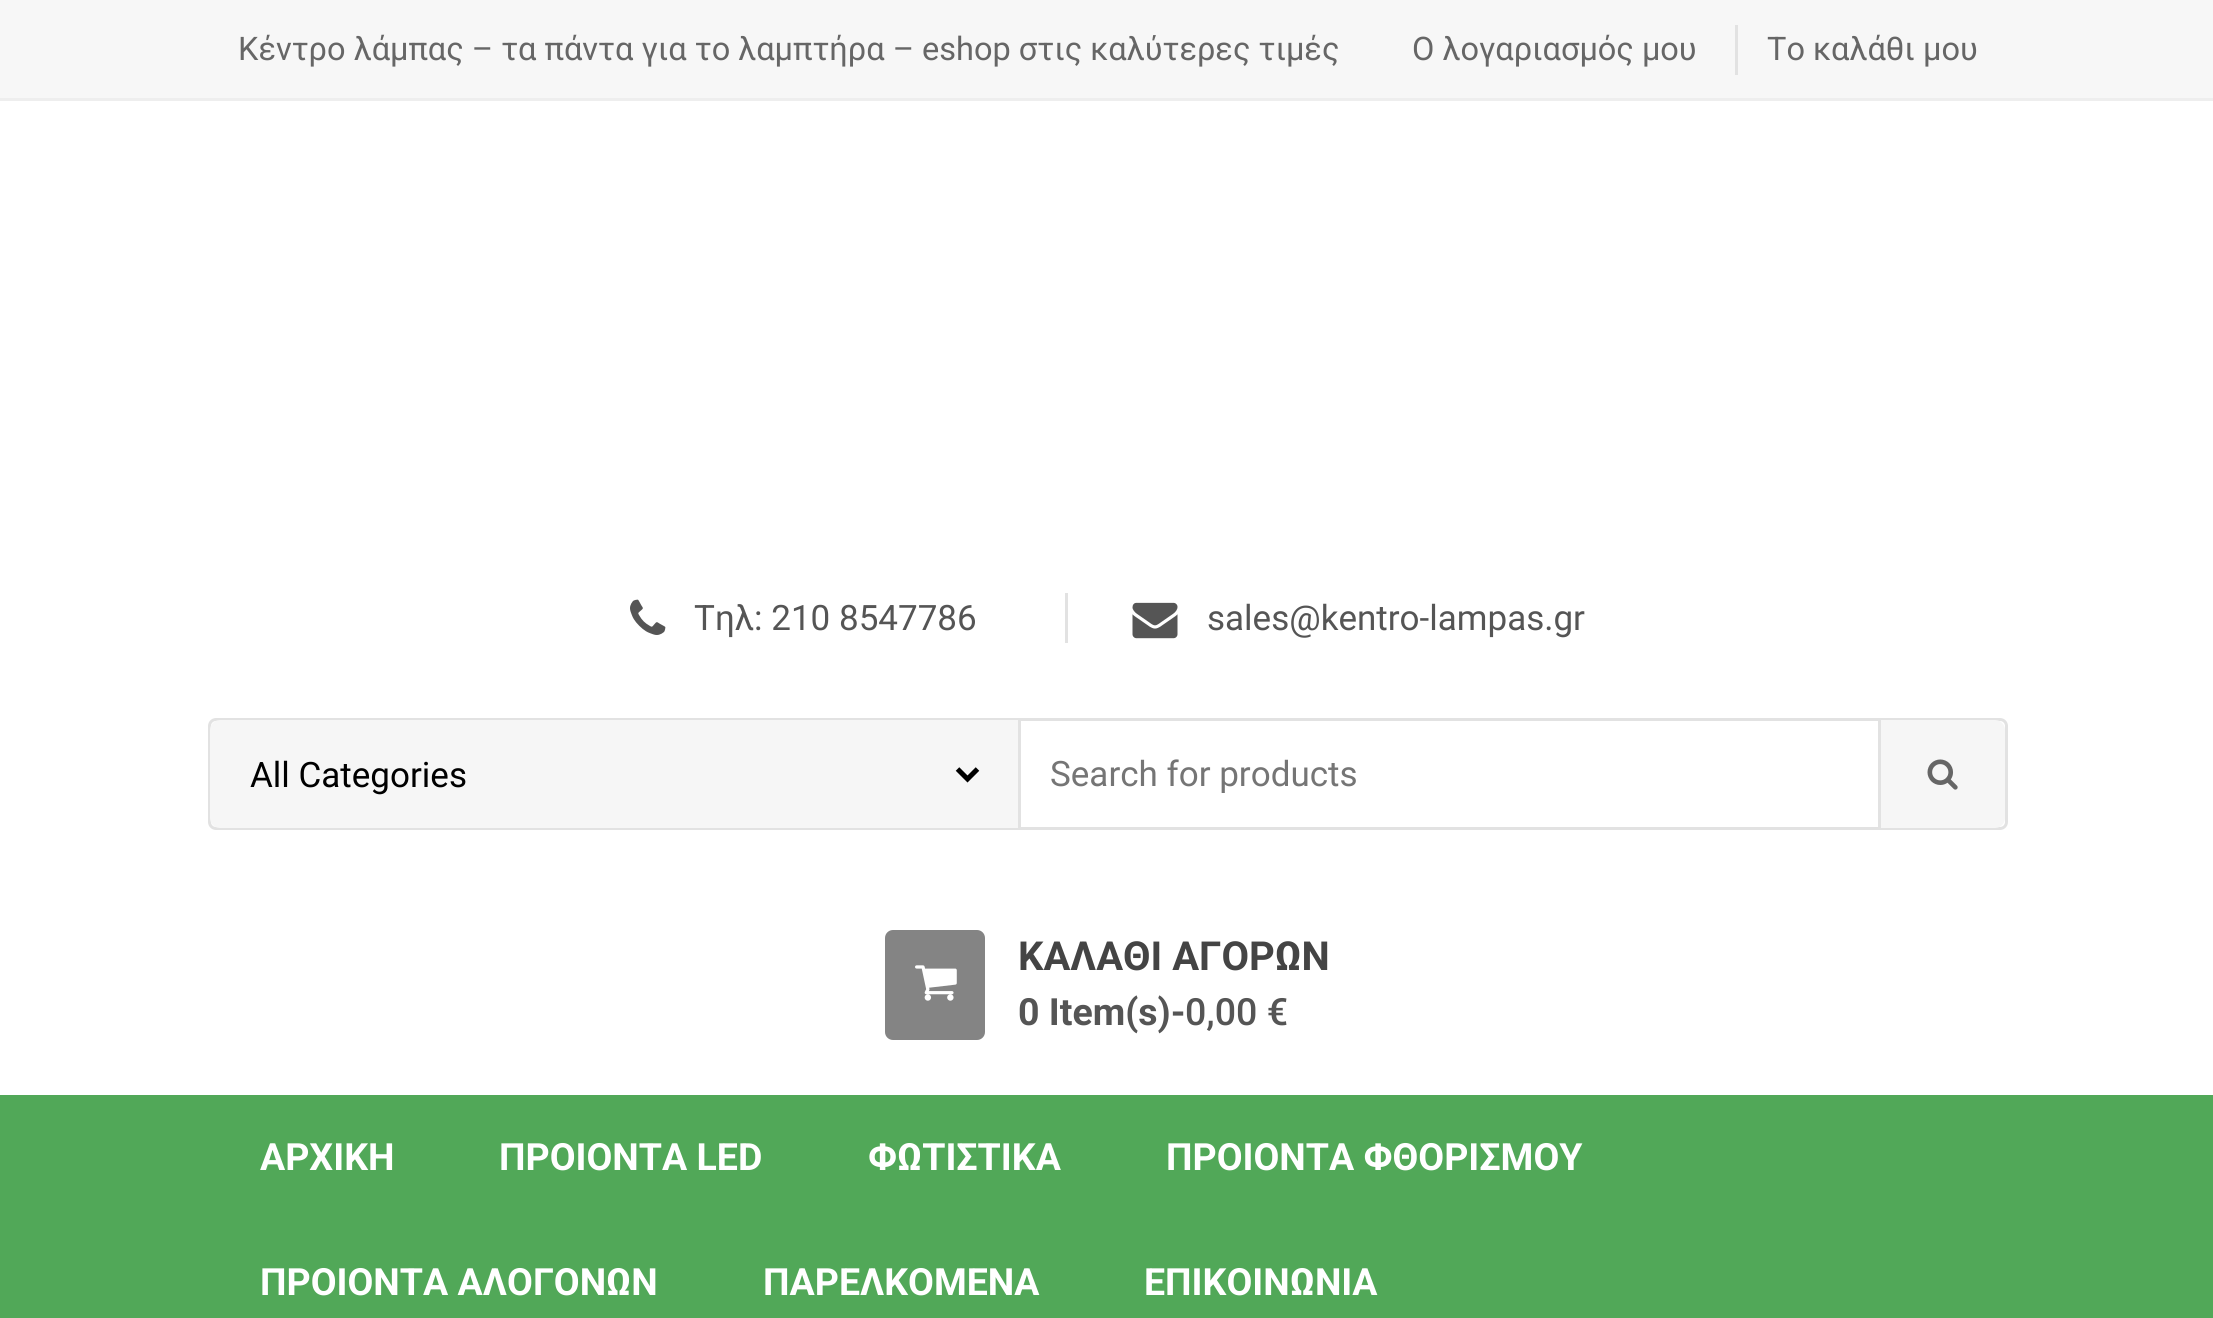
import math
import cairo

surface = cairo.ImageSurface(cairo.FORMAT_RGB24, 2213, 1318)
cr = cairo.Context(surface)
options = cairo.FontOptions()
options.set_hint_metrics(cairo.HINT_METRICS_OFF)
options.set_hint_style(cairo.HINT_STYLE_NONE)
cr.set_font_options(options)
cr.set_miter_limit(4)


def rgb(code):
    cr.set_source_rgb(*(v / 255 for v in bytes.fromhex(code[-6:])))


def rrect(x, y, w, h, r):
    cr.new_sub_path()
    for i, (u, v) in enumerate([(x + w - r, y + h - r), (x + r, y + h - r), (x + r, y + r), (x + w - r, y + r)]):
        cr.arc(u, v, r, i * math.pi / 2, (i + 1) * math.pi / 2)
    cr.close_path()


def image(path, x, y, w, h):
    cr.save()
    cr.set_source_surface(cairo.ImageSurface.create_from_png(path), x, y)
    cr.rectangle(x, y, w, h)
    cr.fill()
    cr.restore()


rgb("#ffffff")
cr.paint()
for x, y, w, h, color in [
    (0, 0, 2213, 98, "#f7f7f7"),
    (0, 98, 2213, 3, "#eeeeee"),
    (1735, 25, 3, 50, "#e2e2e2"),
    (1065, 593, 3, 50, "#e2e2e2"),
]:
    rgb(color)
    cr.rectangle(x, y, w, h)
    cr.fill()
image("img/1.png", 630, 599, 36, 36)
image("img/2.png", 1132, 602, 46, 37)
rrect(209.5, 719.5, 1797, 109, 6.5)
cr.set_line_width(3)
cr.stroke()
rgb("#f6f6f6")
cr.new_path()
cr.move_to(220, 720)
cr.line_to(1020, 720)
cr.line_to(1020, 828)
cr.line_to(220, 828)
cr.curve_to(214.5, 828, 210, 823.5, 210, 818)
cr.line_to(210, 730)
cr.curve_to(210, 724.5, 214.5, 720, 220, 720)
cr.close_path()
cr.fill()
rgb("#e2e2e2")
cr.rectangle(1018, 720, 3, 108)
cr.fill()
cr.new_path()
cr.move_to(957.5, 769)
cr.line_to(967.5, 779)
cr.line_to(977.5, 769)
rgb("#000000")
cr.set_line_width(5)
cr.stroke()
rgb("#f6f6f6")
cr.new_path()
cr.move_to(1880, 720)
cr.line_to(1995, 720)
cr.curve_to(2000.5, 720, 2005, 724.5, 2005, 730)
cr.line_to(2005, 818)
cr.curve_to(2005, 823.5, 2000.5, 828, 1995, 828)
cr.line_to(1880, 828)
cr.close_path()
cr.fill()
rgb("#e2e2e2")
cr.rectangle(1878, 720, 3, 108)
cr.fill()
image("img/3.png", 1927, 759, 31, 31)
rgb("#848484")
rrect(885, 930, 100, 110, 8)
cr.fill()
image("img/4.png", 915, 965, 42, 36)
rgb("#51a858")
cr.rectangle(0, 1095, 2213, 223)
cr.fill()
cr.select_font_face("Roboto")
cr.set_font_size(32.5)
rgb("#666666")
for x, y, s in [
    (238, 60, "Κέντρο λάμπας – τα πάντα για το λαμπτήρα – eshop στις καλύτερες τιμές"),
    (1412, 60, "Ο λογαριασμός μου"),
    (1767, 60, "Το καλάθι μου"),
]:
    cr.move_to(x, y)
    cr.show_text(s)
cr.set_font_size(35)
rgb("#555555")
cr.move_to(694, 630)
cr.show_text("Τηλ: 210 8547786")
cr.move_to(1207, 630)
cr.show_text("sales@kentro-lampas.gr")
rgb("#000000")
cr.move_to(250, 787)
cr.show_text("All Categories")
cr.save()
cr.rectangle(1050, 753, 798, 40)
cr.clip()
rgb("#757575")
cr.move_to(1050, 786)
cr.show_text("Search for products")
cr.restore()
cr.select_font_face("Roboto", cairo.FONT_SLANT_NORMAL, cairo.FONT_WEIGHT_BOLD)
cr.set_font_size(40)
rgb("#444444")
cr.move_to(1018, 970)
cr.show_text("ΚΑΛΑΘΙ ΑΓΟΡΩΝ")
cr.set_font_size(37.5)
rgb("#555555")
cr.move_to(1018, 1025)
cr.show_text("0 Item(s)-")
cr.select_font_face("Roboto Medium")
cr.move_to(1185, 1025)
cr.show_text("0,00 €")
cr.select_font_face("Roboto", cairo.FONT_SLANT_NORMAL, cairo.FONT_WEIGHT_BOLD)
rgb("#ffffff")
for x, y, s in [
    (260, 1170, "ΑΡΧΙΚΗ"),
    (499, 1170, "ΠΡΟΙΟΝΤΑ LED"),
    (868, 1170, "ΦΩΤΙΣΤΙΚΑ"),
    (1166, 1170, "ΠΡΟΙΟΝΤΑ ΦΘΟΡΙΣΜΟΥ"),
    (260, 1295, "ΠΡΟΙΟΝΤΑ ΑΛΟΓΟΝΩΝ"),
    (763, 1295, "ΠΑΡΕΛΚΟΜΕΝΑ"),
    (1144, 1295, "ΕΠΙΚΟΙΝΩΝΙΑ"),
]:
    cr.move_to(x, y)
    cr.show_text(s)
surface.write_to_png("page.png")
